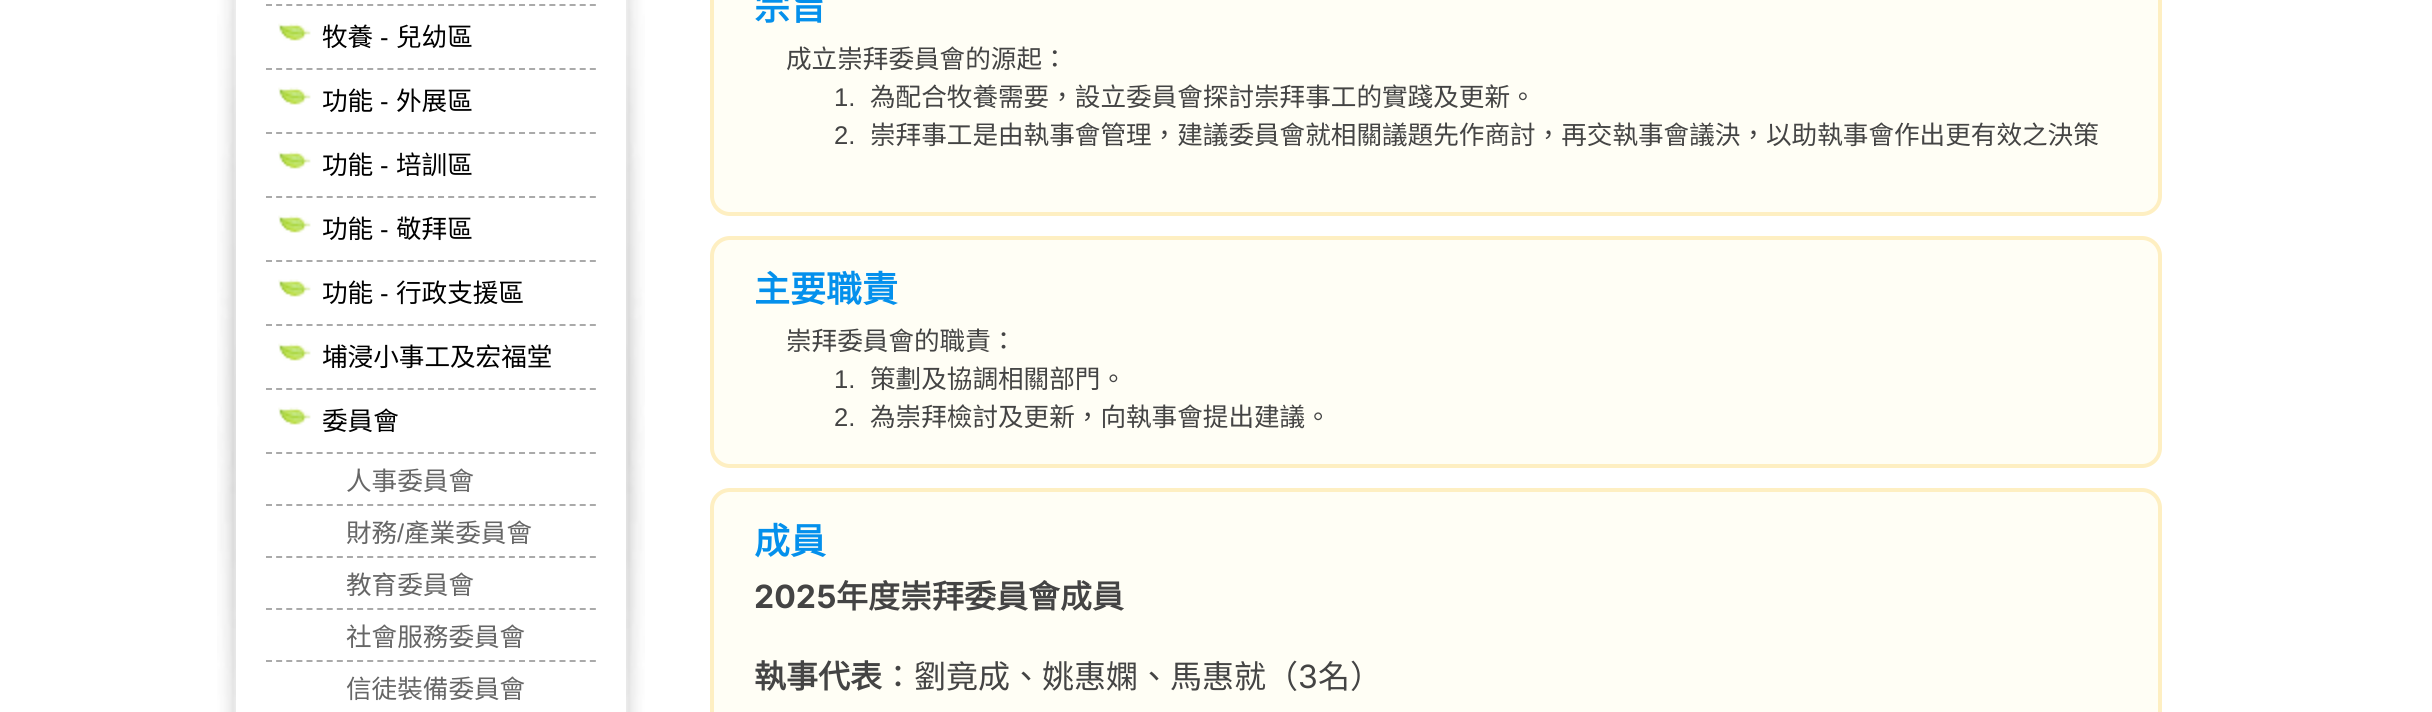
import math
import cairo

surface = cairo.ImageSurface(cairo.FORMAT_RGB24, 2432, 712)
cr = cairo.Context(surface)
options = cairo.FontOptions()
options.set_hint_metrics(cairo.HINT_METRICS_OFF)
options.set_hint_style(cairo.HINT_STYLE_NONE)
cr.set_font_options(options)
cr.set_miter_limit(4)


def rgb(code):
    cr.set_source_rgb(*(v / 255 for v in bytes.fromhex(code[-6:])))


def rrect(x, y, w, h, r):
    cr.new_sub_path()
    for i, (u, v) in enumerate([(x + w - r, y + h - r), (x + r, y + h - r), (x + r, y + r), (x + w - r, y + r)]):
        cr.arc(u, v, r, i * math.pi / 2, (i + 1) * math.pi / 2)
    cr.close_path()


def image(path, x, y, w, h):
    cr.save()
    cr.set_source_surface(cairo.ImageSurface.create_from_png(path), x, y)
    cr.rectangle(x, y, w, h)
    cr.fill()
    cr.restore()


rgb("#ffffff")
cr.paint()
image("img/1.png", 217, 0, 19, 712)
cr.new_path()
cr.move_to(266, 5)
cr.line_to(596, 5)
rgb("#aaaaaa")
cr.set_dash([6, 4.12])
cr.stroke()
image("img/2.png", 278, 23, 33, 18)
cr.new_path()
cr.move_to(266, 69)
cr.line_to(596, 69)
cr.stroke()
image("img/2.png", 278, 87, 33, 18)
cr.new_path()
cr.move_to(266, 133)
cr.line_to(596, 133)
cr.stroke()
image("img/2.png", 278, 151, 33, 18)
cr.new_path()
cr.move_to(266, 197)
cr.line_to(596, 197)
cr.stroke()
image("img/2.png", 278, 215, 33, 18)
cr.new_path()
cr.move_to(266, 261)
cr.line_to(596, 261)
cr.stroke()
image("img/2.png", 278, 279, 33, 18)
cr.new_path()
cr.move_to(266, 325)
cr.line_to(596, 325)
cr.stroke()
image("img/2.png", 278, 343, 33, 18)
cr.new_path()
cr.move_to(266, 389)
cr.line_to(596, 389)
cr.stroke()
image("img/2.png", 278, 407, 33, 18)
cr.new_path()
cr.move_to(266, 453)
cr.line_to(596, 453)
cr.stroke()
cr.new_path()
cr.move_to(266, 505)
cr.line_to(596, 505)
cr.stroke()
cr.new_path()
cr.move_to(266, 557)
cr.line_to(596, 557)
cr.stroke()
cr.new_path()
cr.move_to(266, 609)
cr.line_to(596, 609)
cr.stroke()
cr.new_path()
cr.move_to(266, 661)
cr.line_to(596, 661)
cr.stroke()
image("img/3.png", 626, 0, 19, 712)
rgb("#feefc2")
rrect(710, -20, 1452, 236, 20)
cr.fill()
rgb("#fffef5")
rrect(714, -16, 1444, 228, 16)
cr.fill()
rgb("#feefc2")
rrect(710, 236, 1452, 232, 20)
cr.fill()
rgb("#fffef5")
rrect(714, 240, 1444, 224, 16)
cr.fill()
rgb("#feefc2")
rrect(710, 488, 1452, 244, 20)
cr.fill()
rgb("#fffef5")
rrect(714, 492, 1444, 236, 16)
cr.fill()
cr.select_font_face("Noto Sans CJK HK")
cr.set_font_size(25.6)
rgb("#000000")
cr.move_to(322, 46)
cr.show_text("牧養")
cr.select_font_face("Liberation Sans")
cr.move_to(380, 46)
cr.show_text("-")
cr.select_font_face("Noto Sans CJK HK")
cr.move_to(396, 46)
cr.show_text("兒幼區")
cr.move_to(322, 110)
cr.show_text("功能")
cr.select_font_face("Liberation Sans")
cr.move_to(380, 110)
cr.show_text("-")
cr.select_font_face("Noto Sans CJK HK")
cr.move_to(396, 110)
cr.show_text("外展區")
cr.move_to(322, 174)
cr.show_text("功能")
cr.select_font_face("Liberation Sans")
cr.move_to(380, 174)
cr.show_text("-")
cr.select_font_face("Noto Sans CJK HK")
cr.move_to(396, 174)
cr.show_text("培訓區")
cr.move_to(322, 238)
cr.show_text("功能")
cr.select_font_face("Liberation Sans")
cr.move_to(380, 238)
cr.show_text("-")
cr.select_font_face("Noto Sans CJK HK")
cr.move_to(396, 238)
cr.show_text("敬拜區")
cr.move_to(322, 302)
cr.show_text("功能")
cr.select_font_face("Liberation Sans")
cr.move_to(380, 302)
cr.show_text("-")
cr.select_font_face("Noto Sans CJK HK")
for x, y, s in [
    (396, 302, "行政支援區"),
    (322, 366, "埔浸小事工及宏福堂"),
    (322, 430, "委員會"),
]:
    cr.move_to(x, y)
    cr.show_text(s)
rgb("#666666")
cr.move_to(346, 490)
cr.show_text("人事委員會")
cr.move_to(346, 542)
cr.show_text("財務")
cr.select_font_face("Liberation Sans")
cr.move_to(397, 542)
cr.show_text("/")
cr.select_font_face("Noto Sans CJK HK")
for x, y, s in [
    (404, 542, "產業委員會"),
    (346, 594, "教育委員會"),
    (346, 646, "社會服務委員會"),
    (346, 698, "信徒裝備委員會"),
]:
    cr.move_to(x, y)
    cr.show_text(s)
cr.select_font_face("Noto Sans CJK HK", cairo.FONT_SLANT_NORMAL, cairo.FONT_WEIGHT_BOLD)
cr.set_font_size(36)
rgb("#0490ec")
cr.move_to(754, 20)
cr.show_text("宗旨")
cr.select_font_face("Noto Sans CJK HK")
cr.set_font_size(25.6)
rgb("#444444")
cr.move_to(786, 68)
cr.show_text("成立崇拜委員會的源起：")
cr.select_font_face("Liberation Sans")
cr.move_to(834, 106)
cr.show_text("1.")
cr.select_font_face("Noto Sans CJK HK")
cr.move_to(870, 106)
cr.show_text("為配合牧養需要，設立委員會探討崇拜事工的實踐及更新。")
cr.select_font_face("Liberation Sans")
cr.move_to(834, 144)
cr.show_text("2.")
cr.select_font_face("Noto Sans CJK HK")
cr.move_to(870, 144)
cr.show_text("崇拜事工是由執事會管理，建議委員會就相關議題先作商討，再交執事會議決，以助執事會作出更有效之決策")
cr.select_font_face("Noto Sans CJK HK", cairo.FONT_SLANT_NORMAL, cairo.FONT_WEIGHT_BOLD)
cr.set_font_size(36)
rgb("#0490ec")
cr.move_to(754, 302)
cr.show_text("主要職責")
cr.select_font_face("Noto Sans CJK HK")
cr.set_font_size(25.6)
rgb("#444444")
cr.move_to(786, 350)
cr.show_text("崇拜委員會的職責：")
cr.select_font_face("Liberation Sans")
cr.move_to(834, 388)
cr.show_text("1.")
cr.select_font_face("Noto Sans CJK HK")
cr.move_to(870, 388)
cr.show_text("策劃及協調相關部門。")
cr.select_font_face("Liberation Sans")
cr.move_to(834, 426)
cr.show_text("2.")
cr.select_font_face("Noto Sans CJK HK")
cr.move_to(870, 426)
cr.show_text("為崇拜檢討及更新，向執事會提出建議。")
cr.select_font_face("Noto Sans CJK HK", cairo.FONT_SLANT_NORMAL, cairo.FONT_WEIGHT_BOLD)
cr.set_font_size(36)
rgb("#0490ec")
cr.move_to(754, 554)
cr.show_text("成員")
cr.select_font_face("Inter", cairo.FONT_SLANT_NORMAL, cairo.FONT_WEIGHT_BOLD)
cr.set_font_size(32)
rgb("#444444")
cr.move_to(754, 608)
cr.show_text("2025")
cr.select_font_face("Noto Sans CJK HK", cairo.FONT_SLANT_NORMAL, cairo.FONT_WEIGHT_BOLD)
cr.move_to(836, 608)
cr.show_text("年度崇拜委員會成員")
cr.move_to(754, 688)
cr.show_text("執事代表")
cr.select_font_face("Noto Sans CJK HK")
cr.move_to(882, 688)
cr.show_text("：劉竟成、姚惠嫻、馬惠就（")
cr.select_font_face("Inter")
cr.move_to(1298, 688)
cr.show_text("3")
cr.select_font_face("Noto Sans CJK HK")
cr.move_to(1318, 688)
cr.show_text("名）")
surface.write_to_png("page.png")
